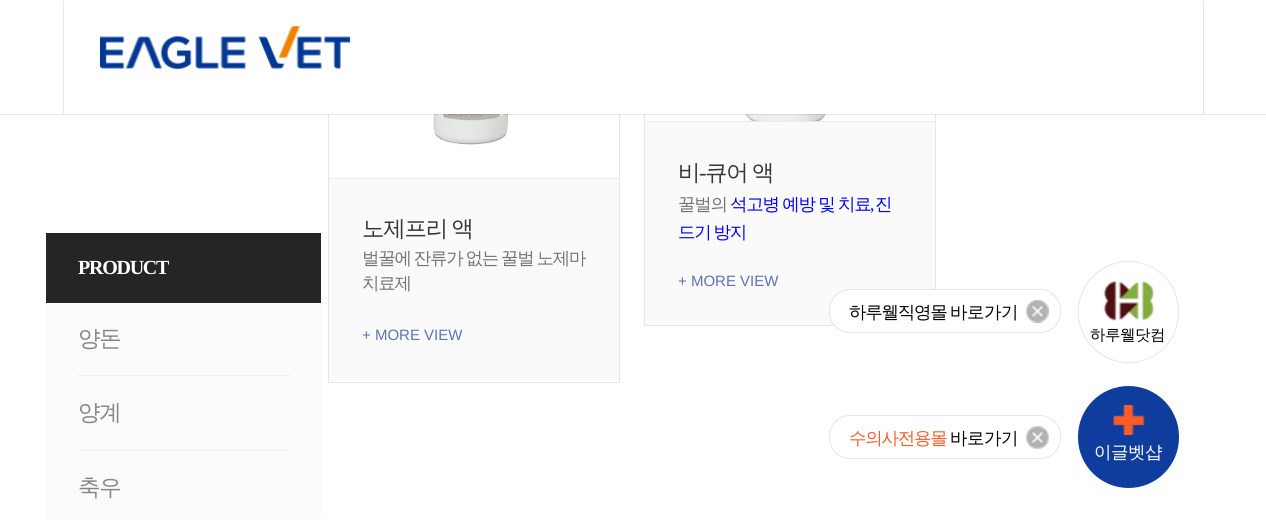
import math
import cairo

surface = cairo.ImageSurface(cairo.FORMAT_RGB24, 1266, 524)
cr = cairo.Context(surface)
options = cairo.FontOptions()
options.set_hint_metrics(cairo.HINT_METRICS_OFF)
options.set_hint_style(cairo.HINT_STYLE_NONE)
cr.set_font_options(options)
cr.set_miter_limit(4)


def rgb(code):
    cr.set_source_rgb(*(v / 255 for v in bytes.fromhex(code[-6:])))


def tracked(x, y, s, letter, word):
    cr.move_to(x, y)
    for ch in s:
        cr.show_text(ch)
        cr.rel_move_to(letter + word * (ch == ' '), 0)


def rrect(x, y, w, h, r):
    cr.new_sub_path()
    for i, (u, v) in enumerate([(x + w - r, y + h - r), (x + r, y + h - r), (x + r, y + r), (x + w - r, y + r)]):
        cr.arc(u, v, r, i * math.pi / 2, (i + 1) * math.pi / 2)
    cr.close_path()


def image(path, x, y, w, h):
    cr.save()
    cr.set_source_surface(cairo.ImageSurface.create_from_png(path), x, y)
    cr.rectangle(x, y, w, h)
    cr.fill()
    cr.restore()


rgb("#ffffff")
cr.paint()
cr.rectangle(328.5, -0.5, 291, 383)
rgb("#e6e6e6")
cr.set_line_width(1)
cr.stroke()
image("img/2.png", 433, 114, 77, 31)
cr.rectangle(644.5, -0.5, 291, 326)
cr.stroke()
image("img/3.png", 739, 114, 91, 7)
cr.set_source_rgba(0, 0, 0, 0.1)
cr.rectangle(0, 114, 1266, 1)
cr.fill()
rgb("#ffffff")
cr.rectangle(328, 0, 608, 114)
cr.fill()
rgb("#e6e6e6")
cr.rectangle(63, 1, 1, 113)
cr.fill()
image("img/1.png", 100, 26, 251, 43)
for x, y, w, h, color in [
    (1203, 1, 1, 113, "#e6e6e6"),
    (46, 233, 275, 70, "#252525"),
    (46, 303, 275, 216, "#fbfbfb"),
    (78, 375, 212, 1, "#f1f1f1"),
    (78, 450, 212, 1, "#f1f1f1"),
    (329, 179, 290, 202, "#fafafa"),
    (329, 178, 290, 1, "#ebebeb"),
    (645, 122, 290, 203, "#fafafa"),
    (645, 121, 290, 1, "#ebebeb"),
]:
    rgb(color)
    cr.rectangle(x, y, w, h)
    cr.fill()
rgb("#ffffff")
rrect(829.5, 289.5, 231, 43, 20.5)
cr.fill_preserve()
rgb("#e5e5e5")
cr.stroke()
image("img/4.png", 1026, 300, 23, 23)
rrect(1078.5, 261.5, 100, 101, 50)
rgb("#e6e6e6")
cr.stroke()
image("img/5.png", 1103, 281, 51, 40)
rrect(829.5, 415.5, 231, 43, 20.5)
cr.stroke()
image("img/6.png", 1026, 426, 23, 23)
rgb("#0f3d9d")
rrect(1078, 386, 101, 102, 50.5)
cr.fill()
image("img/7.png", 1113, 405, 32, 30)
cr.select_font_face("Liberation Serif", cairo.FONT_SLANT_NORMAL, cairo.FONT_WEIGHT_BOLD)
cr.set_font_size(20)
rgb("#ffffff")
tracked(78, 274, "PRODUCT", -1.25, 0)
cr.select_font_face("WenQuanYi Zen Hei Medium")
cr.set_font_size(22.5)
rgb("#868686")
for x, y, s in [
    (78, 346, "양돈"),
    (78, 420, "양계"),
    (78, 495, "축우"),
]:
    tracked(x, y, s, -1.25, 0)
rgb("#363636")
tracked(362, 236, "노제프리 액", -1.25, -1)
cr.set_font_size(17.5)
rgb("#737373")
tracked(362, 264, "벌꿀에 잔류가 없는 꿀벌 노제마", -1.25, -1)
tracked(362, 289, "치료제", -1.25, 0)
cr.select_font_face("Liberation Sans")
cr.set_font_size(15)
rgb("#5d73b3")
cr.move_to(362, 340)
cr.show_text("+ MORE VIEW")
cr.select_font_face("WenQuanYi Zen Hei Medium")
cr.set_font_size(22.5)
rgb("#363636")
tracked(678, 180, "비", -1.25, 0)
cr.select_font_face("Liberation Serif")
tracked(699, 180, "-", -1.25, 0)
cr.select_font_face("WenQuanYi Zen Hei Medium")
tracked(705, 180, "큐어 액", -1.25, -1)
cr.set_font_size(17.5)
rgb("#737373")
tracked(678, 210, "꿀벌의", -1.25, 0)
rgb("#0000ff")
tracked(730, 210, "석고병 예방 및 치료", -1.25, -0.5)
cr.select_font_face("Liberation Serif")
tracked(870, 210, ",", -1.25, 0)
cr.select_font_face("WenQuanYi Zen Hei Medium")
tracked(875, 210, "진", -1.25, 0)
tracked(678, 238, "드기 방지", -1.25, -1)
cr.select_font_face("Liberation Sans")
cr.set_font_size(15)
rgb("#5d73b3")
cr.move_to(678, 286)
cr.show_text("+ MORE VIEW")
cr.select_font_face("WenQuanYi Zen Hei Medium")
cr.set_font_size(17.5)
rgb("#000000")
tracked(849, 318, "하루웰직영몰", -1.25, 0)
tracked(950, 318, "바로가기", -0.5, 0)
cr.set_font_size(15.5)
tracked(1090, 340, "하루웰닷컴", -0.5, 0)
cr.set_font_size(17.5)
rgb("#fb5b27")
tracked(849, 444, "수의사전용몰", -1.25, 0)
rgb("#000000")
tracked(950, 444, "바로가기", -0.5, 0)
rgb("#ffffff")
tracked(1094, 458, "이글벳샵", -0.5, 0)
surface.write_to_png("page.png")
